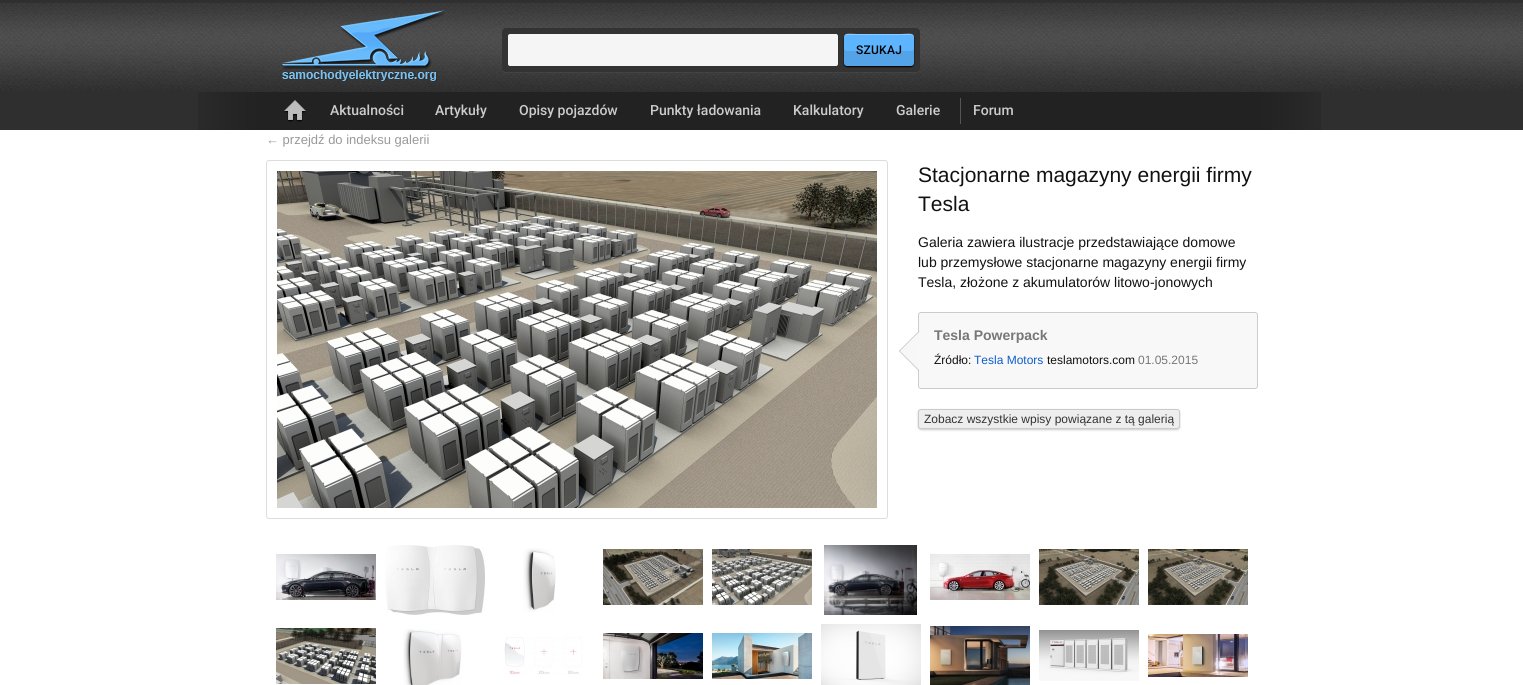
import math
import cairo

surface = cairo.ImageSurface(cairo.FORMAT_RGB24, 1523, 685)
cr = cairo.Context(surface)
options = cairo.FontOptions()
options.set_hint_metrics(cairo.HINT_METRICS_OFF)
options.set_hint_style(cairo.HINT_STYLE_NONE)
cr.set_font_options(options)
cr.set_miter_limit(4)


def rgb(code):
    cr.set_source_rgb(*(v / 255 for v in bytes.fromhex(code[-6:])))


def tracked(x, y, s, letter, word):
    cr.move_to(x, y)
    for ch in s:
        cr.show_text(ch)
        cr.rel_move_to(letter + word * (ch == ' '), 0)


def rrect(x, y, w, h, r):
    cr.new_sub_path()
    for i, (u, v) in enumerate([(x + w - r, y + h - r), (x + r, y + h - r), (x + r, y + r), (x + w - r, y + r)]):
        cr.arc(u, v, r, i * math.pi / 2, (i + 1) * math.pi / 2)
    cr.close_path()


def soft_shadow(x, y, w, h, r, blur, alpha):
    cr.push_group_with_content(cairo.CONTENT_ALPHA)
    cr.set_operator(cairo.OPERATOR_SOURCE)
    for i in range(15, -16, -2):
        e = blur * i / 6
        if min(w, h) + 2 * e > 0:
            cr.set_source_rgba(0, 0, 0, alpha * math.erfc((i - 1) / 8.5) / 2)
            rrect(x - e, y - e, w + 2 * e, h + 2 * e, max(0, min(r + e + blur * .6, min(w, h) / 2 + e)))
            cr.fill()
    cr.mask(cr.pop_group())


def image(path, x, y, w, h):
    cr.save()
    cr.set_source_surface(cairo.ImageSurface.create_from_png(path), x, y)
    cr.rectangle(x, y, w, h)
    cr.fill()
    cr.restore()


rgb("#ffffff")
cr.paint()
rgb("#2f2f2f")
cr.rectangle(0, 0, 1523, 2)
cr.fill()
image("img/1.png", 0, 2, 1523, 90)
image("img/2.png", 281, 10, 164, 72)
cr.set_source_rgba(1, 1, 1, 0.04)
cr.new_path()
cr.move_to(502, 68)
cr.line_to(502, 69)
cr.curve_to(502, 71, 504, 73, 506, 73)
cr.line_to(916, 73)
cr.curve_to(918, 73, 920, 71, 920, 69)
cr.line_to(920, 68)
cr.curve_to(920, 70, 918, 72, 916, 72)
cr.line_to(506, 72)
cr.curve_to(504, 72, 502, 70, 502, 68)
cr.close_path()
cr.fill()
rgb("#333333")
rrect(502, 28, 418, 44, 4)
cr.fill()
rgb("#f5f5f5")
rrect(508, 34, 330, 32, 2)
cr.fill()
rgb("#000000")
soft_shadow(844, 35, 70, 32, 3, 0.5, 1)
rgb("#5db5ff")
rrect(844, 34, 70, 32, 3)
cr.fill()
cr.set_source_rgba(1, 1, 1, 0.3)
cr.new_path()
cr.move_to(847, 35)
cr.line_to(911, 35)
cr.curve_to(913, 35, 914, 36, 914, 38)
cr.curve_to(914, 31, 905, 34, 900, 34)
cr.line_to(858, 34)
cr.curve_to(853, 34, 844, 31, 844, 38)
cr.curve_to(844, 36, 845, 35, 847, 35)
cr.close_path()
cr.fill()
cr.set_source_rgba(0, 0, 0, 0.1)
cr.new_path()
cr.move_to(844, 48)
cr.line_to(844, 63)
cr.curve_to(844, 65, 845, 66, 847, 66)
cr.line_to(911, 66)
cr.curve_to(913, 66, 914, 65, 914, 63)
cr.line_to(914, 48)
cr.curve_to(914, 50, 913, 51, 911, 51)
cr.line_to(847, 51)
cr.curve_to(845, 51, 844, 50, 844, 48)
cr.close_path()
cr.fill()
rgb("#2f2f2f")
cr.rectangle(0, 92, 1523, 38)
cr.fill()
image("img/3.png", 198, 92, 1123, 38)
image("img/4.png", 284, 100, 22, 22)
rgb("#555555")
cr.rectangle(960, 98, 1, 26)
cr.fill()
rrect(266.5, 160.5, 621, 358, 2.5)
rgb("#dddddd")
cr.set_line_width(1)
cr.stroke()
image("img/5.png", 277, 171, 600, 337)
rgb("#f8f8f8")
rrect(918.5, 312.5, 339, 76, 2.5)
cr.fill_preserve()
rgb("#cccccc")
cr.stroke()
image("img/6.png", 899, 331, 20, 40)
rgb("#000000")
soft_shadow(918, 410, 262, 20, 3, 1, 0.2)
rgb("#eeeeee")
rrect(918.5, 409.5, 261, 19, 2.5)
cr.fill_preserve()
rgb("#cacaca")
cr.stroke()
image("img/7.png", 276, 554, 100, 46)
image("img/8.png", 385, 545, 100, 70)
image("img/9.png", 523, 548, 33, 64)
image("img/10.png", 603, 549, 100, 56)
image("img/11.png", 712, 549, 100, 56)
image("img/12.png", 824, 545, 93, 70)
image("img/13.png", 930, 554, 100, 46)
image("img/14.png", 1039, 549, 100, 56)
image("img/15.png", 1148, 549, 100, 56)
image("img/16.png", 276, 628, 100, 56)
image("img/17.png", 403, 629, 59, 56)
image("img/18.png", 504, 637, 79, 38)
image("img/19.png", 603, 633, 100, 46)
image("img/20.png", 712, 633, 100, 46)
image("img/21.png", 821, 624, 100, 61)
image("img/22.png", 930, 626, 100, 59)
image("img/23.png", 1039, 630, 100, 51)
image("img/24.png", 1148, 634, 100, 43)
cr.select_font_face("Roboto Medium")
cr.set_font_size(12)
rgb("#000000")
tracked(856, 54, "SZUKAJ", 0.25, 0)
cr.set_font_size(14)
rgb("#cccccc")
for x, y, s in [
    (330, 115, "Aktualności"),
    (435, 115, "Artykuły"),
    (519, 115, "Opisy pojazdów"),
    (650, 115, "Punkty ładowania"),
    (793, 115, "Kalkulatory"),
    (896, 115, "Galerie"),
    (973, 115, "Forum"),
]:
    cr.move_to(x, y)
    cr.show_text(s)
cr.select_font_face("Liberation Sans")
cr.set_font_size(13)
rgb("#999999")
cr.move_to(266, 144)
cr.show_text("← przejdź do indeksu galerii")
cr.set_font_size(21)
rgb("#111111")
cr.move_to(918, 182)
cr.show_text("Stacjonarne magazyny energii firmy")
cr.move_to(918, 211)
cr.show_text("Tesla")
cr.set_font_size(14)
for x, y, s in [
    (918, 247, "Galeria zawiera ilustracje przedstawiające domowe"),
    (918, 267, "lub przemysłowe stacjonarne magazyny energii firmy"),
    (918, 287, "Tesla, złożone z akumulatorów litowo-jonowych"),
]:
    cr.move_to(x, y)
    cr.show_text(s)
cr.select_font_face("Liberation Sans", cairo.FONT_SLANT_NORMAL, cairo.FONT_WEIGHT_BOLD)
rgb("#777777")
cr.move_to(934, 340)
cr.show_text("Tesla Powerpack")
cr.select_font_face("Liberation Sans")
cr.set_font_size(12)
rgb("#111111")
cr.move_to(934, 364)
cr.show_text("Źródło:")
rgb("#0e5dca")
cr.move_to(974, 364)
cr.show_text("Tesla Motors")
rgb("#111111")
cr.move_to(1047, 364)
cr.show_text("teslamotors.com")
rgb("#777777")
cr.move_to(1138, 364)
cr.show_text("01.05.2015")
rgb("#333333")
cr.move_to(924, 423)
cr.show_text("Zobacz wszystkie wpisy powiązane z tą galerią")
surface.write_to_png("page.png")
